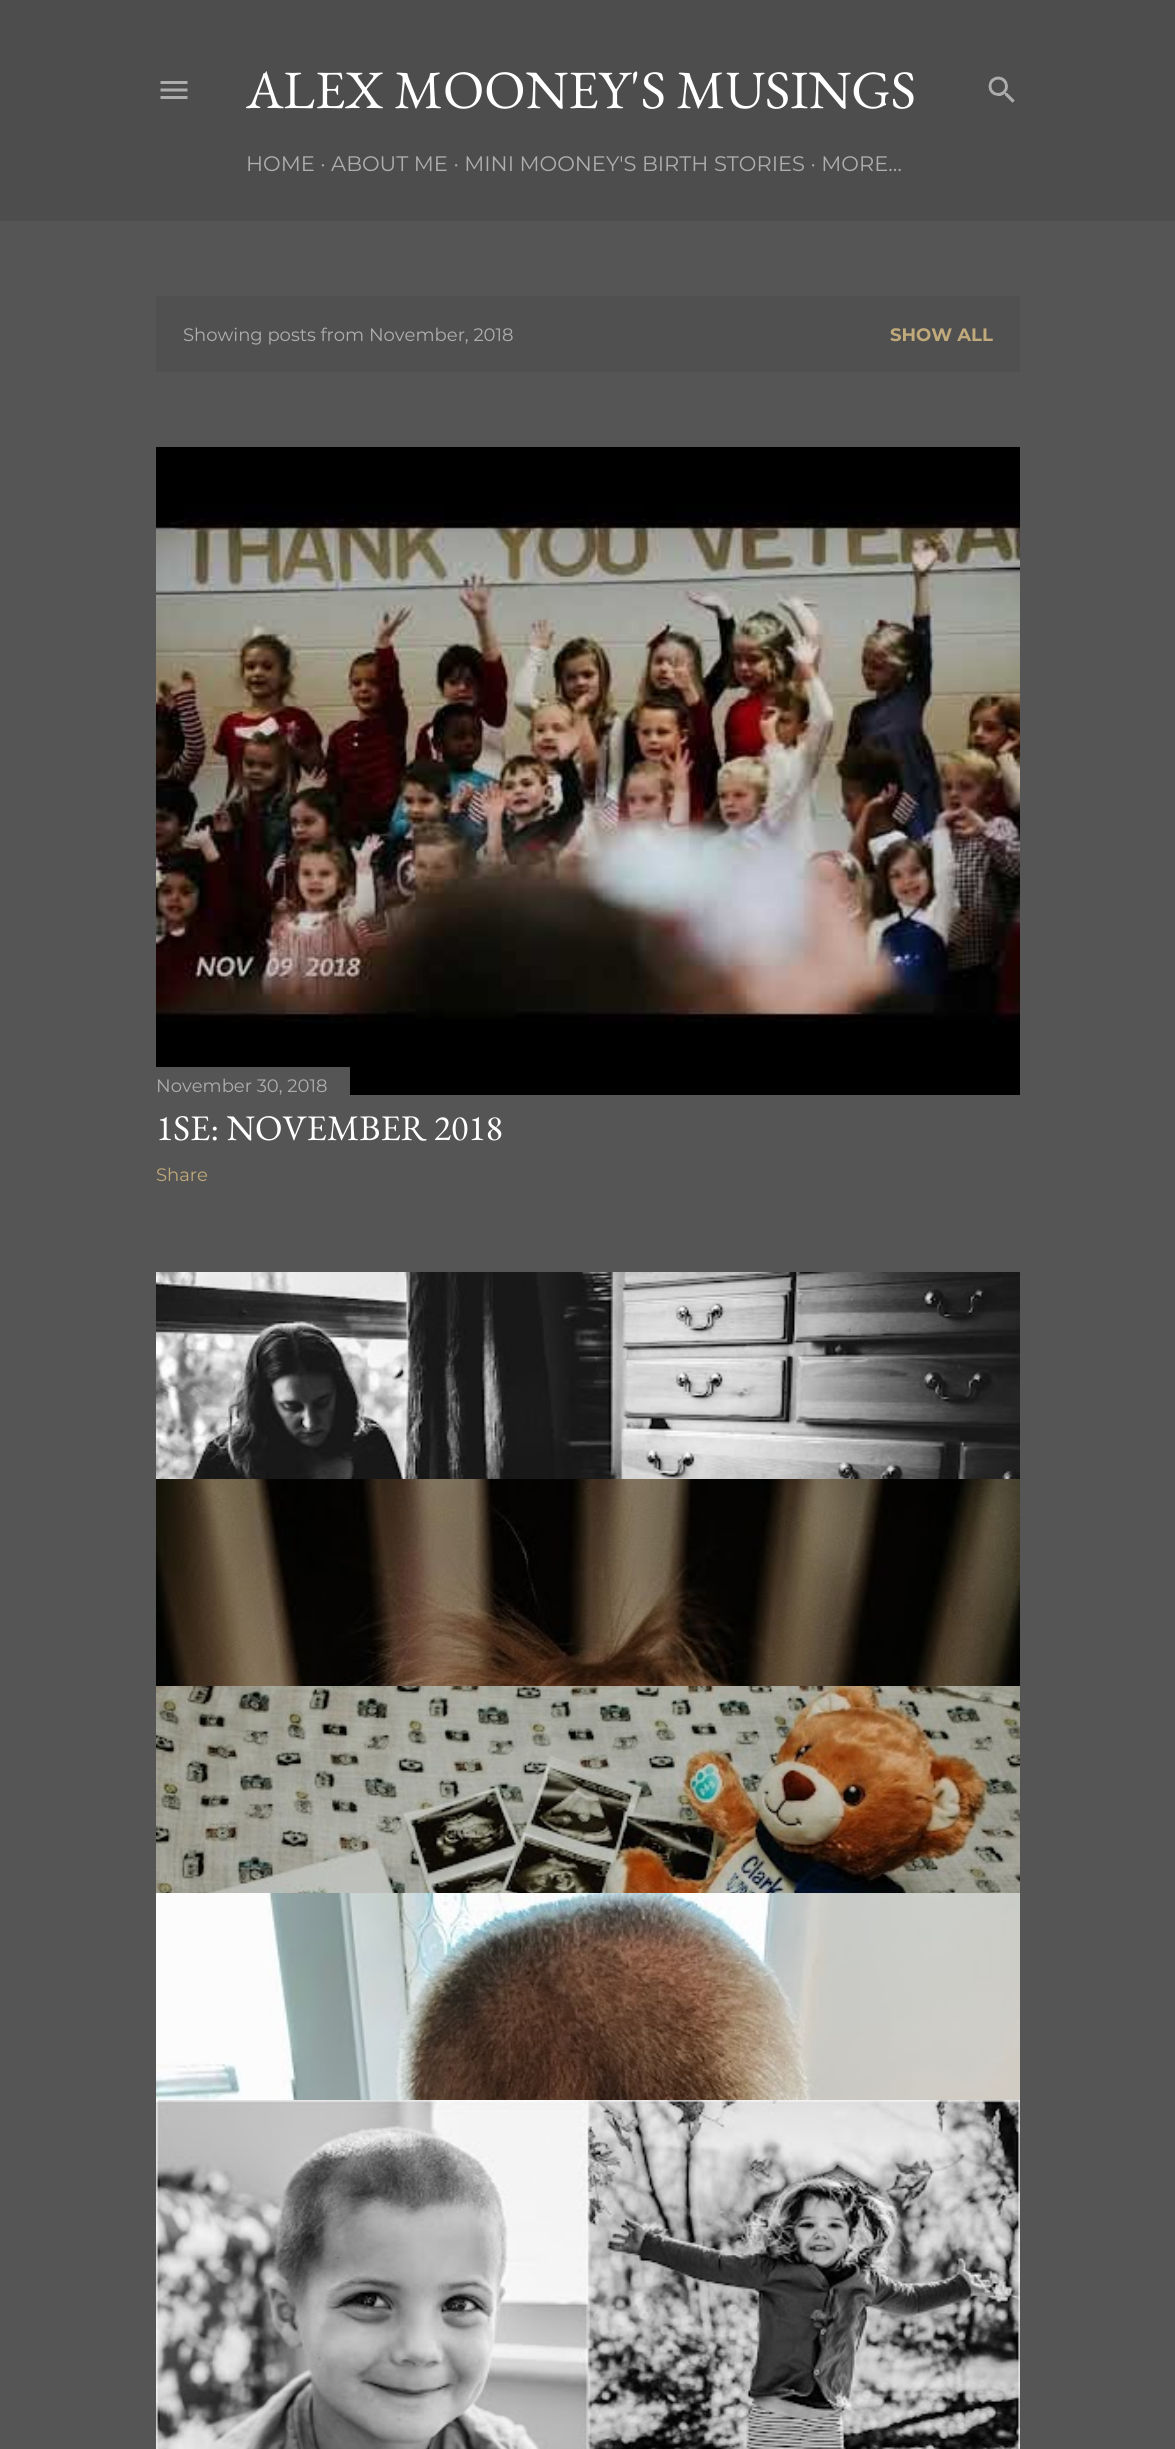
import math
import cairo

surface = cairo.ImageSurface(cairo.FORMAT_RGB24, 1175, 2449)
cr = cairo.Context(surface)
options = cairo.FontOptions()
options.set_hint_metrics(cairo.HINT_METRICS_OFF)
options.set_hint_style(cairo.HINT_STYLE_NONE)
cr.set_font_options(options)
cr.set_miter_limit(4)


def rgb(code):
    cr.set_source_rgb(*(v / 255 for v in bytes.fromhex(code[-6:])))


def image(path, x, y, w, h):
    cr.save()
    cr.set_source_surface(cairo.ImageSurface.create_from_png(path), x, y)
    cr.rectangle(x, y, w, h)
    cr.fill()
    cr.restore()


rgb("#555555")
cr.paint()
rgb("#4d4d4d")
cr.rectangle(0, 0, 1175, 221)
cr.fill()
image("img/1.png", 160, 81, 28, 18)
image("img/2.png", 988, 76, 27, 27)
rgb("#505050")
cr.rectangle(156, 296, 864, 76)
cr.fill()
image("img/3.png", 156, 447, 864, 648)
rgb("#555555")
cr.rectangle(156, 1067, 194, 28)
cr.fill()
image("img/4.png", 156, 1272, 864, 207)
image("img/5.png", 156, 1479, 864, 207)
image("img/6.png", 156, 1686, 864, 207)
image("img/7.png", 156, 1893, 864, 207)
image("img/8.png", 156, 2100, 864, 349)
cr.select_font_face("EB Garamond")
cr.set_font_size(54)
rgb("#ffffff")
cr.move_to(246, 108)
cr.show_text("ALEX MOONEY'S MUSINGS")
cr.select_font_face("Montserrat")
cr.set_font_size(21)
rgb("#aeaeae")
cr.move_to(246, 171)
cr.show_text("HOME · ABOUT ME · MINI MOONEY'S BIRTH STORIES · MORE…")
cr.set_font_size(18)
cr.move_to(183, 341)
cr.show_text("Showing posts from November, 2018")
cr.select_font_face("Montserrat", cairo.FONT_SLANT_NORMAL, cairo.FONT_WEIGHT_BOLD)
rgb("#c0a97a")
cr.move_to(890, 341)
cr.show_text("SHOW ALL")
cr.select_font_face("Montserrat")
rgb("#aeaeae")
cr.move_to(156, 1092)
cr.show_text("November 30, 2018")
cr.select_font_face("EB Garamond")
cr.set_font_size(36)
rgb("#ffffff")
cr.move_to(156, 1140)
cr.show_text("1SE: NOVEMBER 2018")
cr.select_font_face("Montserrat")
cr.set_font_size(18)
rgb("#c0a97a")
cr.move_to(156, 1181)
cr.show_text("Share")
surface.write_to_png("page.png")
